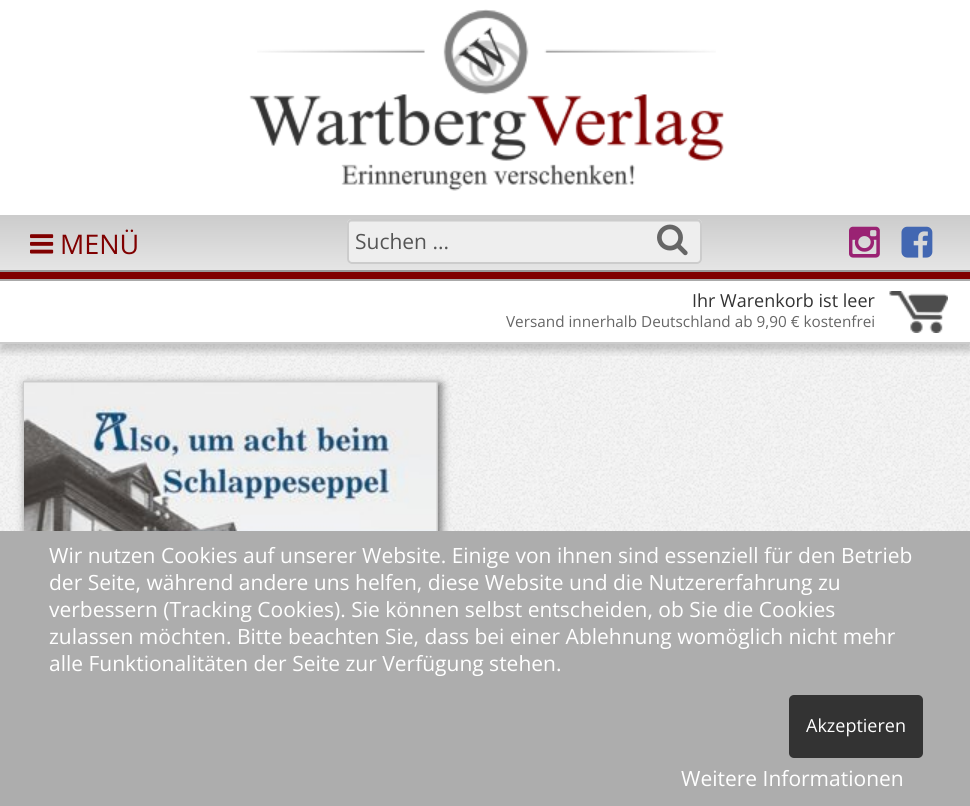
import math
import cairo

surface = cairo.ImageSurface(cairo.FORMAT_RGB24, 970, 806)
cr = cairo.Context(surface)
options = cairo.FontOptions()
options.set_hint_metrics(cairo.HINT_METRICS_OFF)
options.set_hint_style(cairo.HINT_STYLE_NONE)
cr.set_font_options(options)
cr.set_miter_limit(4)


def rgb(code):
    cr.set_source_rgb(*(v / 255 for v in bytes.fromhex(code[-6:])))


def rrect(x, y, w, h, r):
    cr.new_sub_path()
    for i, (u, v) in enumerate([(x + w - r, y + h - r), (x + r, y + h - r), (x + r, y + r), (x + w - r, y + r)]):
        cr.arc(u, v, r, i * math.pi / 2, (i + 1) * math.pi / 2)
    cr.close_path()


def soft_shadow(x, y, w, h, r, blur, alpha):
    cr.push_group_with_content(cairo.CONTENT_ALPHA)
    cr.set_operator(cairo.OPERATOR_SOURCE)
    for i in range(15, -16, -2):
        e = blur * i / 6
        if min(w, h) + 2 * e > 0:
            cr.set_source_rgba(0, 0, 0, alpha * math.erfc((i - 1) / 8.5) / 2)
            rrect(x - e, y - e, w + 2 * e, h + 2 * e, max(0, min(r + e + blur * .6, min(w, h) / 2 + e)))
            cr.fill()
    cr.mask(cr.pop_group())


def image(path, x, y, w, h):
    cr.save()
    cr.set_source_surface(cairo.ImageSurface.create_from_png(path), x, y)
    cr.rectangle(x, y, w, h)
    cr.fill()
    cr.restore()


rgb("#f5f5f5")
cr.paint()
image("img/1.png", 0, 344, 970, 187)
rgb("#ffffff")
cr.rectangle(0, 0, 970, 342)
cr.fill()
image("img/2.png", 257, 9, 459, 86)
image("img/3.png", 249, 94, 475, 97)
gradient = cairo.LinearGradient(485, 216, 485, 270)
gradient.add_color_stop_rgba(0, 0.8, 0.8, 0.8, 1)
gradient.add_color_stop_rgba(1, 0.898, 0.898, 0.898, 1)
cr.set_source(gradient)
cr.rectangle(0, 217, 970, 53)
cr.fill()
rgb("#cccccc")
cr.rectangle(0, 215, 970, 2)
cr.fill()
rgb("#999999")
cr.rectangle(0, 270, 970, 2)
cr.fill()
image("img/4.png", 30, 234, 24, 20)
rgb("#eeeeee")
rrect(347, 219, 355, 45, 5)
cr.fill()
rgb("#dcdcdc")
cr.new_path()
cr.move_to(351, 222)
cr.line_to(698, 222)
cr.curve_to(699, 222, 700, 223, 700, 225)
cr.line_to(700, 262)
cr.curve_to(701, 262, 701, 261, 701, 260)
cr.line_to(701, 224)
cr.curve_to(701, 222, 700, 221, 698, 221)
cr.line_to(351, 221)
cr.curve_to(349, 221, 348, 222, 348, 224)
cr.line_to(348, 225)
cr.curve_to(348, 223, 349, 222, 351, 222)
cr.close_path()
cr.fill()
rrect(348, 220, 353, 43, 4)
rgb("#cccccc")
cr.stroke()
image("img/5.png", 657, 224, 31, 32)
image("img/6.png", 849, 226, 31, 32)
image("img/7.png", 901, 226, 32, 32)
rgb("#800000")
cr.rectangle(0, 272, 970, 7)
cr.fill()
cr.save()
cr.rectangle(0, 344, 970, 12)
cr.clip()
rgb("#000000")
soft_shadow(0, 287, 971, 64, 0, 4, 0.2)
cr.restore()
rgb("#aaaaaa")
cr.rectangle(0, 279, 970, 2)
cr.fill()
rgb("#cccccc")
cr.rectangle(0, 342, 970, 2)
cr.fill()
image("img/8.png", 889, 291, 59, 42)
rgb("#000000")
soft_shadow(26, 384, 415, 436, 0, 4.5, 0.55)
cr.rectangle(24, 382, 413, 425)
rgb("#cccccc")
cr.stroke()
image("img/9.png", 24, 382, 413, 149)
rgb("#adadad")
cr.rectangle(0, 531, 970, 275)
cr.fill()
rgb("#333333")
rrect(789, 695, 134, 63, 5)
cr.fill()
cr.select_font_face("Open Sans")
cr.set_font_size(27)
rgb("#800000")
cr.move_to(60, 254)
cr.show_text("MENÜ")
cr.set_font_size(21)
rgb("#555555")
cr.move_to(355, 249)
cr.show_text("Suchen ...")
cr.set_font_size(18)
rgb("#333333")
cr.move_to(692, 307)
cr.show_text("Ihr Warenkorb ist leer")
cr.set_font_size(15.3)
rgb("#666666")
cr.move_to(506, 327)
cr.show_text("Versand innerhalb Deutschland ab 9,90 € kostenfrei")
cr.set_font_size(21)
rgb("#ffffff")
for x, y, s in [
    (49, 563, "Wir nutzen Cookies auf unserer Website. Einige von ihnen sind essenziell für den Betrieb"),
    (49, 590, "der Seite, während andere uns helfen, diese Website und die Nutzererfahrung zu"),
    (49, 617, "verbessern (Tracking Cookies). Sie können selbst entscheiden, ob Sie die Cookies"),
    (49, 644, "zulassen möchten. Bitte beachten Sie, dass bei einer Ablehnung womöglich nicht mehr"),
    (49, 671, "alle Funktionalitäten der Seite zur Verfügung stehen."),
]:
    cr.move_to(x, y)
    cr.show_text(s)
cr.set_font_size(18)
cr.move_to(806, 732)
cr.show_text("Akzeptieren")
cr.set_font_size(21)
cr.move_to(681, 786)
cr.show_text("Weitere Informationen")
surface.write_to_png("page.png")
